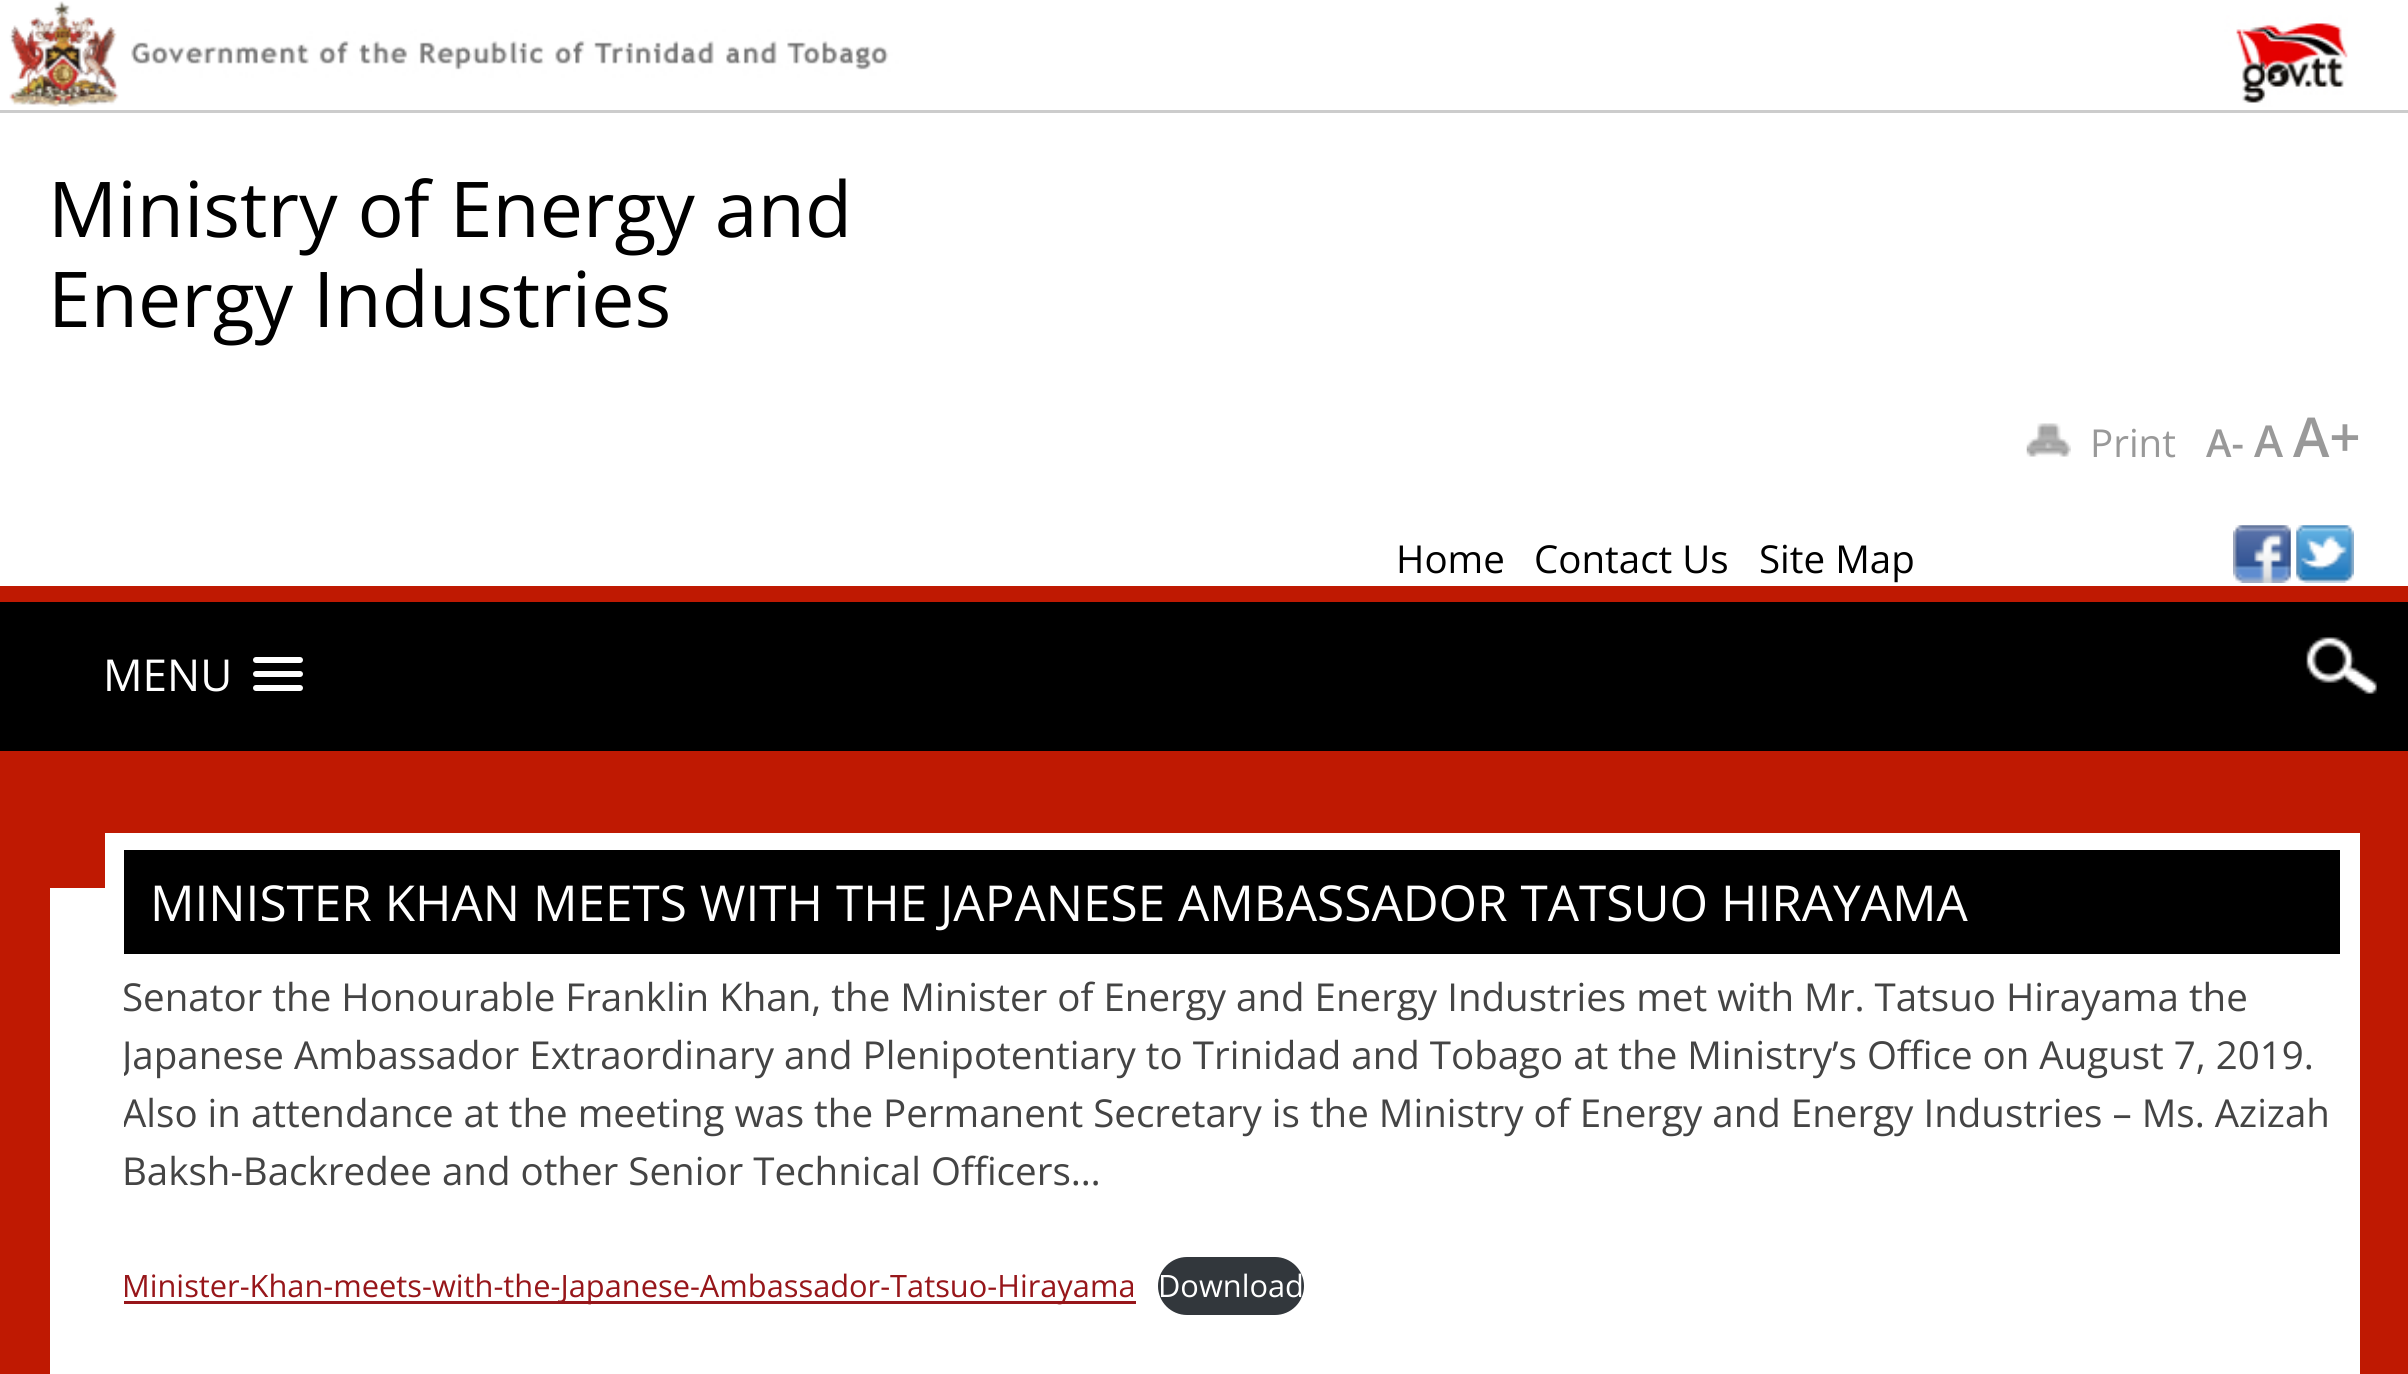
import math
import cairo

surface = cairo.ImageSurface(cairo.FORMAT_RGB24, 2408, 1374)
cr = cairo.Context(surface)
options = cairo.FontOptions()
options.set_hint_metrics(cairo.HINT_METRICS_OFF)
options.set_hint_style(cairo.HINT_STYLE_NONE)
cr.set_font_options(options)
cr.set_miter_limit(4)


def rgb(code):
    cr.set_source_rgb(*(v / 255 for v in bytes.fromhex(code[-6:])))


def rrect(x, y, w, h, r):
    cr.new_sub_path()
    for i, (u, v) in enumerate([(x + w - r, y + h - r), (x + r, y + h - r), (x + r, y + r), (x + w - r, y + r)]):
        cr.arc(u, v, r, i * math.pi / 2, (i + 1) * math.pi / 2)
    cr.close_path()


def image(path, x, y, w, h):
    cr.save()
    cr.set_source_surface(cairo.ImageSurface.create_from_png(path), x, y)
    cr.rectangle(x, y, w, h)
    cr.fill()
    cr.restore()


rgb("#bf1902")
cr.paint()
rgb("#ffffff")
cr.rectangle(0, 0, 2408, 586)
cr.fill()
rgb("#cccccc")
cr.rectangle(0, 110, 2408, 3)
cr.fill()
image("img/1.png", 9, 1, 2339, 106)
image("img/2.png", 2026, 423, 45, 34)
image("img/3.png", 2233, 525, 58, 58)
image("img/4.png", 2296, 525, 58, 58)
rgb("#000000")
cr.rectangle(0, 602, 2408, 149)
cr.fill()
rgb("#ffffff")
rrect(253, 657, 50, 6, 3)
cr.fill()
rrect(253, 671, 50, 6, 3)
cr.fill()
rrect(253, 685, 50, 6, 3)
cr.fill()
image("img/5.png", 2306, 637, 71, 57)
for x, y, w, h, color in [
    (50, 888, 55, 486, "#ffffff"),
    (105, 833, 2255, 541, "#ffffff"),
    (124, 850, 2216, 104, "#000000"),
    (124, 1301, 1012, 3, "#97161a"),
]:
    rgb(color)
    cr.rectangle(x, y, w, h)
    cr.fill()
rgb("#32373c")
rrect(1158, 1257, 146, 58, 29)
cr.fill()
cr.select_font_face("Open Sans")
cr.set_font_size(77)
rgb("#000000")
cr.move_to(48, 237)
cr.show_text("Ministry of Energy and")
cr.move_to(48, 327)
cr.show_text("Energy Industries")
cr.set_font_size(38.5)
rgb("#999999")
cr.move_to(2090, 457)
cr.show_text("Print")
cr.select_font_face("Open Sans SemiBold")
cr.move_to(2206, 457)
cr.show_text("A-")
cr.set_font_size(44)
cr.move_to(2254, 457)
cr.show_text("A")
cr.set_font_size(55)
cr.move_to(2293, 457)
cr.show_text("A+")
cr.select_font_face("Open Sans")
cr.set_font_size(38.5)
rgb("#000000")
for x, y, s in [
    (1396, 573, "Home"),
    (1534, 573, "Contact Us"),
    (1759, 573, "Site Map"),
]:
    cr.move_to(x, y)
    cr.show_text(s)
cr.set_font_size(44)
rgb("#ffffff")
cr.move_to(103, 691)
cr.show_text("MENU")
cr.set_font_size(49.5)
cr.move_to(150, 921)
cr.show_text("MINISTER KHAN MEETS WITH THE JAPANESE AMBASSADOR TATSUO HIRAYAMA")
cr.set_font_size(38.5)
rgb("#444444")
cr.move_to(122, 1011)
cr.show_text("Senator the Honourable Franklin Khan, the Minister of Energy and Energy Industries met with Mr. Tatsuo Hirayama the")
cr.save()
cr.rectangle(124, 968, 2216, 347)
cr.clip()
cr.move_to(122, 1069)
cr.show_text("Japanese Ambassador Extraordinary and Plenipotentiary to Trinidad and Tobago at the Ministry’s Office on August 7, 2019.")
cr.move_to(122, 1127)
cr.show_text("Also in attendance at the meeting was the Permanent Secretary is the Ministry of Energy and Energy Industries – Ms. Azizah")
cr.restore()
cr.move_to(122, 1185)
cr.show_text("Baksh-Backredee and other Senior Technical Officers…")
cr.set_font_size(30.8)
rgb("#97161a")
cr.move_to(122, 1297)
cr.show_text("Minister-Khan-meets-with-the-Japanese-Ambassador-Tatsuo-Hirayama")
rgb("#ffffff")
cr.move_to(1158, 1297)
cr.show_text("Download")
surface.write_to_png("page.png")
